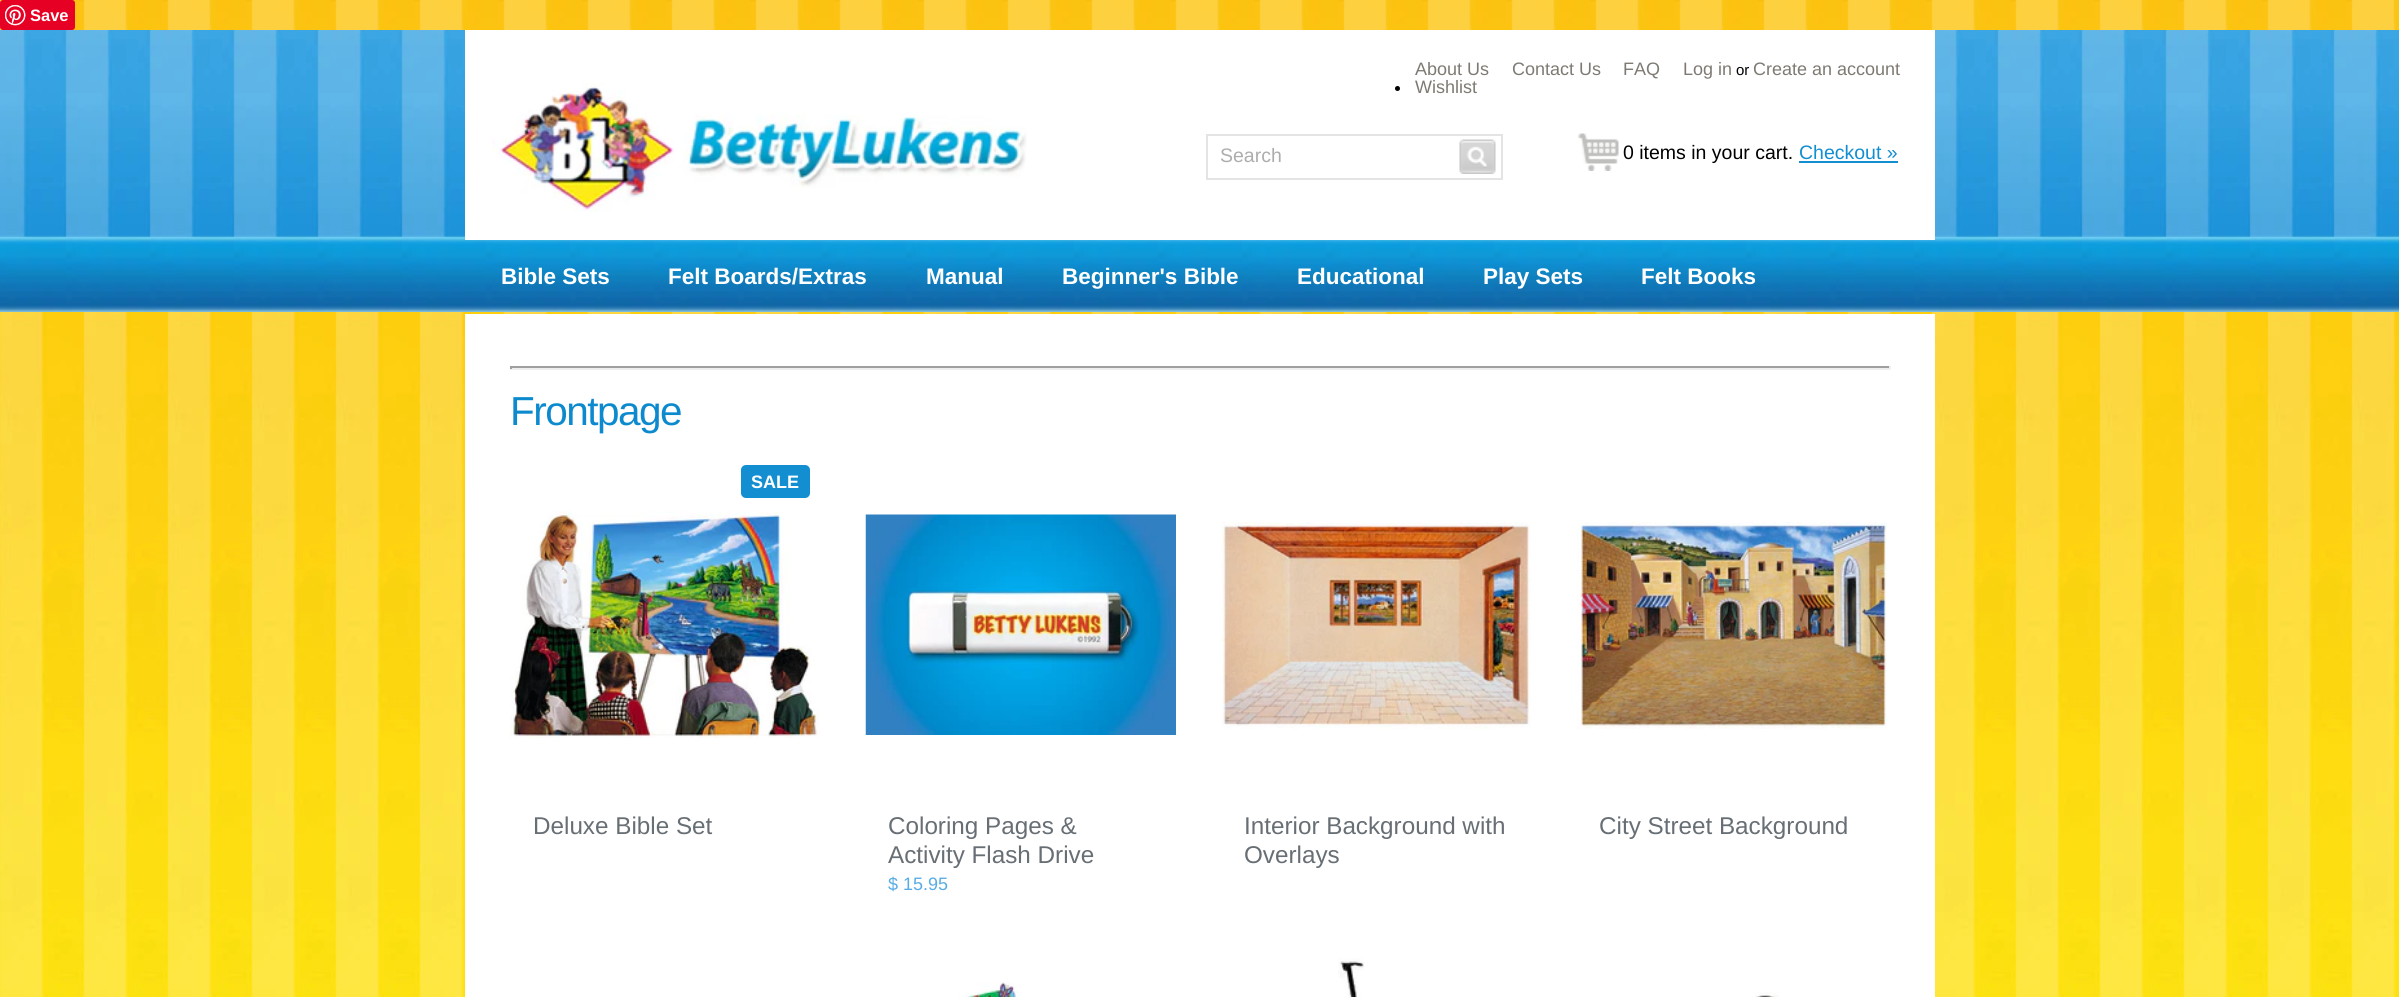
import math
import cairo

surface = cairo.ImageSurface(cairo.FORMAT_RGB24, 2399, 997)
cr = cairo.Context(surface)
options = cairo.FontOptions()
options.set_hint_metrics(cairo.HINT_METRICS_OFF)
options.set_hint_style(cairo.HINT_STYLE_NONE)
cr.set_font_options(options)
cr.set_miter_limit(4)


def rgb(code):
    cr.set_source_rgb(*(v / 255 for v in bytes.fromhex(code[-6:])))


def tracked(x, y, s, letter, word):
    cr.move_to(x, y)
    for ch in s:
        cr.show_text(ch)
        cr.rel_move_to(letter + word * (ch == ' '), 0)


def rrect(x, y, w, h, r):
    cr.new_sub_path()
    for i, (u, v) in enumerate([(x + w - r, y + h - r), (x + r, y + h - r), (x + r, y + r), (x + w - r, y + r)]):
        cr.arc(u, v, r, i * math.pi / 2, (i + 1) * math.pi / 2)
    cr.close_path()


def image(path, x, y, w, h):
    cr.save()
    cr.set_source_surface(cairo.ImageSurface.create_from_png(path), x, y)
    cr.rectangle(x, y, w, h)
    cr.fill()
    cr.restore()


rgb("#ffffff")
cr.paint()
image("img/1.png", 0, 0, 2399, 997)
rgb("#e60023")
rrect(0, 0, 75, 30, 3)
cr.fill()
image("img/2.png", 5, 5, 21, 21)
image("img/3.png", 0, 30, 2399, 282)
rgb("#ffffff")
cr.rectangle(465, 30, 1470, 210)
cr.fill()
image("img/4.png", 492, 83, 535, 129)
rgb("#000000")
cr.arc(1397.5, 88.5, 2.5, 0, 2 * math.pi)
cr.fill()
cr.rectangle(1207, 135, 295, 44)
rgb("#e4e4e4")
cr.stroke()
image("img/5.png", 1459, 139, 37, 35)
image("img/6.png", 1578, 133, 41, 38)
for x, y, w, h, color in [
    (1799, 161, 99, 2, "#138ed1"),
    (465, 314, 1470, 683, "#ffffff"),
    (510, 366, 1380, 2, "#9f9f9f"),
    (1889, 366, 2, 3, "#eeeeee"),
    (510, 368, 1380, 2, "#eeeeee"),
    (510, 366, 2, 3, "#9f9f9f"),
]:
    rgb(color)
    cr.rectangle(x, y, w, h)
    cr.fill()
rgb("#138ed1")
rrect(741, 465, 69, 33, 5)
cr.fill()
image("img/7.png", 510, 511, 310, 227)
image("img/8.png", 865, 514, 311, 221)
image("img/9.png", 1221, 522, 310, 207)
image("img/10.png", 1577, 522, 310, 207)
image("img/11.png", 957, 982, 60, 15)
image("img/12.png", 1338, 958, 26, 39)
image("img/13.png", 1755, 992, 24, 5)
cr.select_font_face("Liberation Sans", cairo.FONT_SLANT_NORMAL, cairo.FONT_WEIGHT_BOLD)
cr.set_font_size(16.5)
rgb("#ffffff")
cr.move_to(30, 21)
cr.show_text("Save")
cr.select_font_face("Liberation Sans")
cr.set_font_size(18)
rgb("#7e7a73")
for x, y, s in [
    (1415, 75, "About Us"),
    (1512, 75, "Contact Us"),
    (1623, 75, "FAQ"),
    (1683, 75, "Log in"),
]:
    cr.move_to(x, y)
    cr.show_text(s)
cr.set_font_size(15)
rgb("#000000")
cr.move_to(1736, 75)
cr.show_text("or")
cr.set_font_size(18)
rgb("#7e7a73")
cr.move_to(1753, 75)
cr.show_text("Create an account")
cr.move_to(1415, 93)
cr.show_text("Wishlist")
cr.set_font_size(19.5)
rgb("#aeadad")
cr.move_to(1220, 162)
cr.show_text("Search")
rgb("#000000")
cr.move_to(1623, 159)
cr.show_text("0 items in your cart.")
rgb("#138ed1")
cr.move_to(1799, 159)
cr.show_text("Checkout »")
cr.select_font_face("Liberation Sans", cairo.FONT_SLANT_NORMAL, cairo.FONT_WEIGHT_BOLD)
cr.set_font_size(22.5)
rgb("#ffffff")
for x, y, s in [
    (501, 284, "Bible Sets"),
    (668, 284, "Felt Boards/Extras"),
    (926, 284, "Manual"),
    (1062, 284, "Beginner's Bible"),
    (1297, 284, "Educational"),
    (1483, 284, "Play Sets"),
    (1641, 284, "Felt Books"),
]:
    cr.move_to(x, y)
    cr.show_text(s)
cr.select_font_face("Liberation Sans")
cr.set_font_size(40.5)
rgb("#0d8ace")
tracked(510, 425, "Frontpage", -1.5, 0)
cr.select_font_face("Liberation Sans", cairo.FONT_SLANT_NORMAL, cairo.FONT_WEIGHT_BOLD)
cr.set_font_size(18)
rgb("#ffffff")
cr.move_to(751, 488)
cr.show_text("SALE")
cr.select_font_face("Liberation Sans")
cr.set_font_size(24.25)
rgb("#676e74")
for x, y, s in [
    (533, 834, "Deluxe Bible Set"),
    (888, 834, "Coloring Pages &"),
    (888, 863, "Activity Flash Drive"),
]:
    cr.move_to(x, y)
    cr.show_text(s)
cr.set_font_size(18)
rgb("#58ace4")
cr.move_to(888, 890)
cr.show_text("$ 15.95")
cr.set_font_size(24.25)
rgb("#676e74")
for x, y, s in [
    (1244, 834, "Interior Background with"),
    (1244, 863, "Overlays"),
    (1599, 834, "City Street Background"),
]:
    cr.move_to(x, y)
    cr.show_text(s)
surface.write_to_png("page.png")
